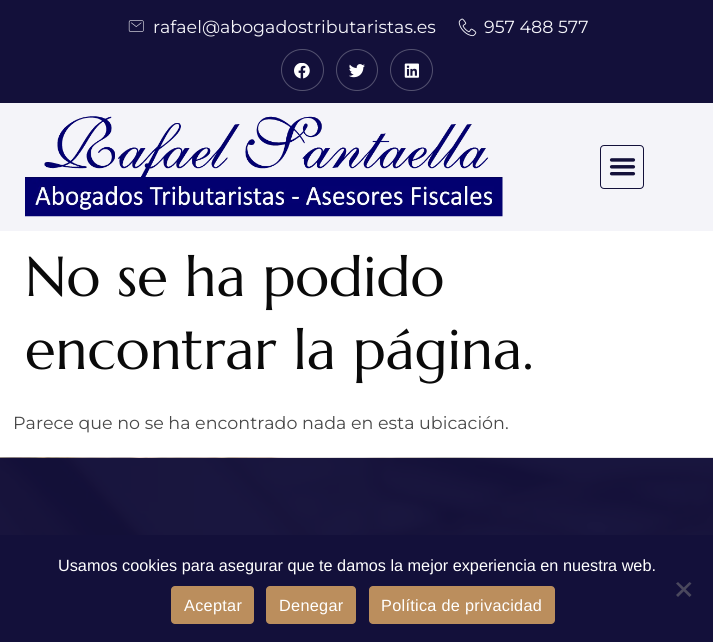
import math
import cairo

surface = cairo.ImageSurface(cairo.FORMAT_RGB24, 713, 642)
cr = cairo.Context(surface)
options = cairo.FontOptions()
options.set_hint_metrics(cairo.HINT_METRICS_OFF)
options.set_hint_style(cairo.HINT_STYLE_NONE)
cr.set_font_options(options)
cr.set_miter_limit(4)


def rgb(code):
    cr.set_source_rgb(*(v / 255 for v in bytes.fromhex(code[-6:])))


def tracked(x, y, s, letter, word):
    cr.move_to(x, y)
    for ch in s:
        cr.show_text(ch)
        cr.rel_move_to(letter + word * (ch == ' '), 0)


def rrect(x, y, w, h, r):
    cr.new_sub_path()
    for i, (u, v) in enumerate([(x + w - r, y + h - r), (x + r, y + h - r), (x + r, y + r), (x + w - r, y + r)]):
        cr.arc(u, v, r, i * math.pi / 2, (i + 1) * math.pi / 2)
    cr.close_path()


def image(path, x, y, w, h):
    cr.save()
    cr.set_source_surface(cairo.ImageSurface.create_from_png(path), x, y)
    cr.rectangle(x, y, w, h)
    cr.fill()
    cr.restore()


rgb("#ffffff")
cr.paint()
rgb("#13103a")
cr.rectangle(0, 0, 713, 103)
cr.fill()
image("img/1.png", 128, 20, 16, 12)
image("img/2.png", 458, 18, 19, 19)
rrect(281.5, 49.5, 42, 41, 20.5)
rgb("#53516f")
cr.set_line_width(1)
cr.stroke()
image("img/3.png", 294, 63, 16, 16)
cr.arc(357, 70, 20.5, 0, 2 * math.pi)
cr.stroke()
image("img/4.png", 349, 64, 16, 14)
rrect(390.5, 49.5, 42, 41, 20.5)
cr.stroke()
image("img/5.png", 404, 63, 15, 15)
rgb("#f4f4f9")
cr.rectangle(0, 103, 713, 128)
cr.fill()
image("img/6.png", 25, 116, 478, 101)
rrect(600.5, 145.5, 43, 43, 3.5)
rgb("#13103a")
cr.stroke()
image("img/7.png", 609, 158, 27, 18)
image("img/8.png", 0, 457, 713, 78)
cr.rectangle(0, 535, 713, 107)
cr.fill()
rgb("#4a485d")
cr.new_path()
cr.move_to(689.5, 582)
cr.line_to(691.5, 583.5)
cr.line_to(678, 597)
cr.line_to(676, 595)
cr.close_path()
cr.fill()
cr.new_path()
cr.move_to(676, 583.5)
cr.line_to(678, 582)
cr.line_to(691.5, 595)
cr.line_to(689.5, 597)
cr.close_path()
cr.fill()
rgb("#bb8e5d")
rrect(171, 586, 83, 38, 4)
cr.fill()
rrect(266, 586, 90, 38, 4)
cr.fill()
rrect(369, 586, 186, 38, 4)
cr.fill()
cr.select_font_face("Montserrat Thin")
cr.set_font_size(17.5)
rgb("#f4f4f9")
cr.move_to(153, 33)
cr.show_text("rafael@abogadostributaristas.es")
cr.move_to(484, 33)
cr.show_text("957 488 577")
cr.select_font_face("Marcellus")
cr.set_font_size(56.25)
rgb("#0a0a0a")
cr.move_to(25, 296)
cr.show_text("No se ha podido")
cr.move_to(25, 369)
cr.show_text("encontrar la página.")
cr.select_font_face("Montserrat Thin")
cr.set_font_size(17.5)
rgb("#484848")
cr.move_to(13, 429)
cr.show_text("Parece que no se ha encontrado nada en esta ubicación.")
cr.select_font_face("Liberation Sans")
cr.set_font_size(16.25)
rgb("#ffffff")
cr.move_to(58, 571)
cr.show_text("Usamos cookies para asegurar que te damos la mejor experiencia en nuestra web.")
for x, y, s in [
    (184, 611, "Aceptar"),
    (279, 611, "Denegar"),
    (381, 611, "Política de privacidad"),
]:
    tracked(x, y, s, 0.3, 0)
surface.write_to_png("page.png")
